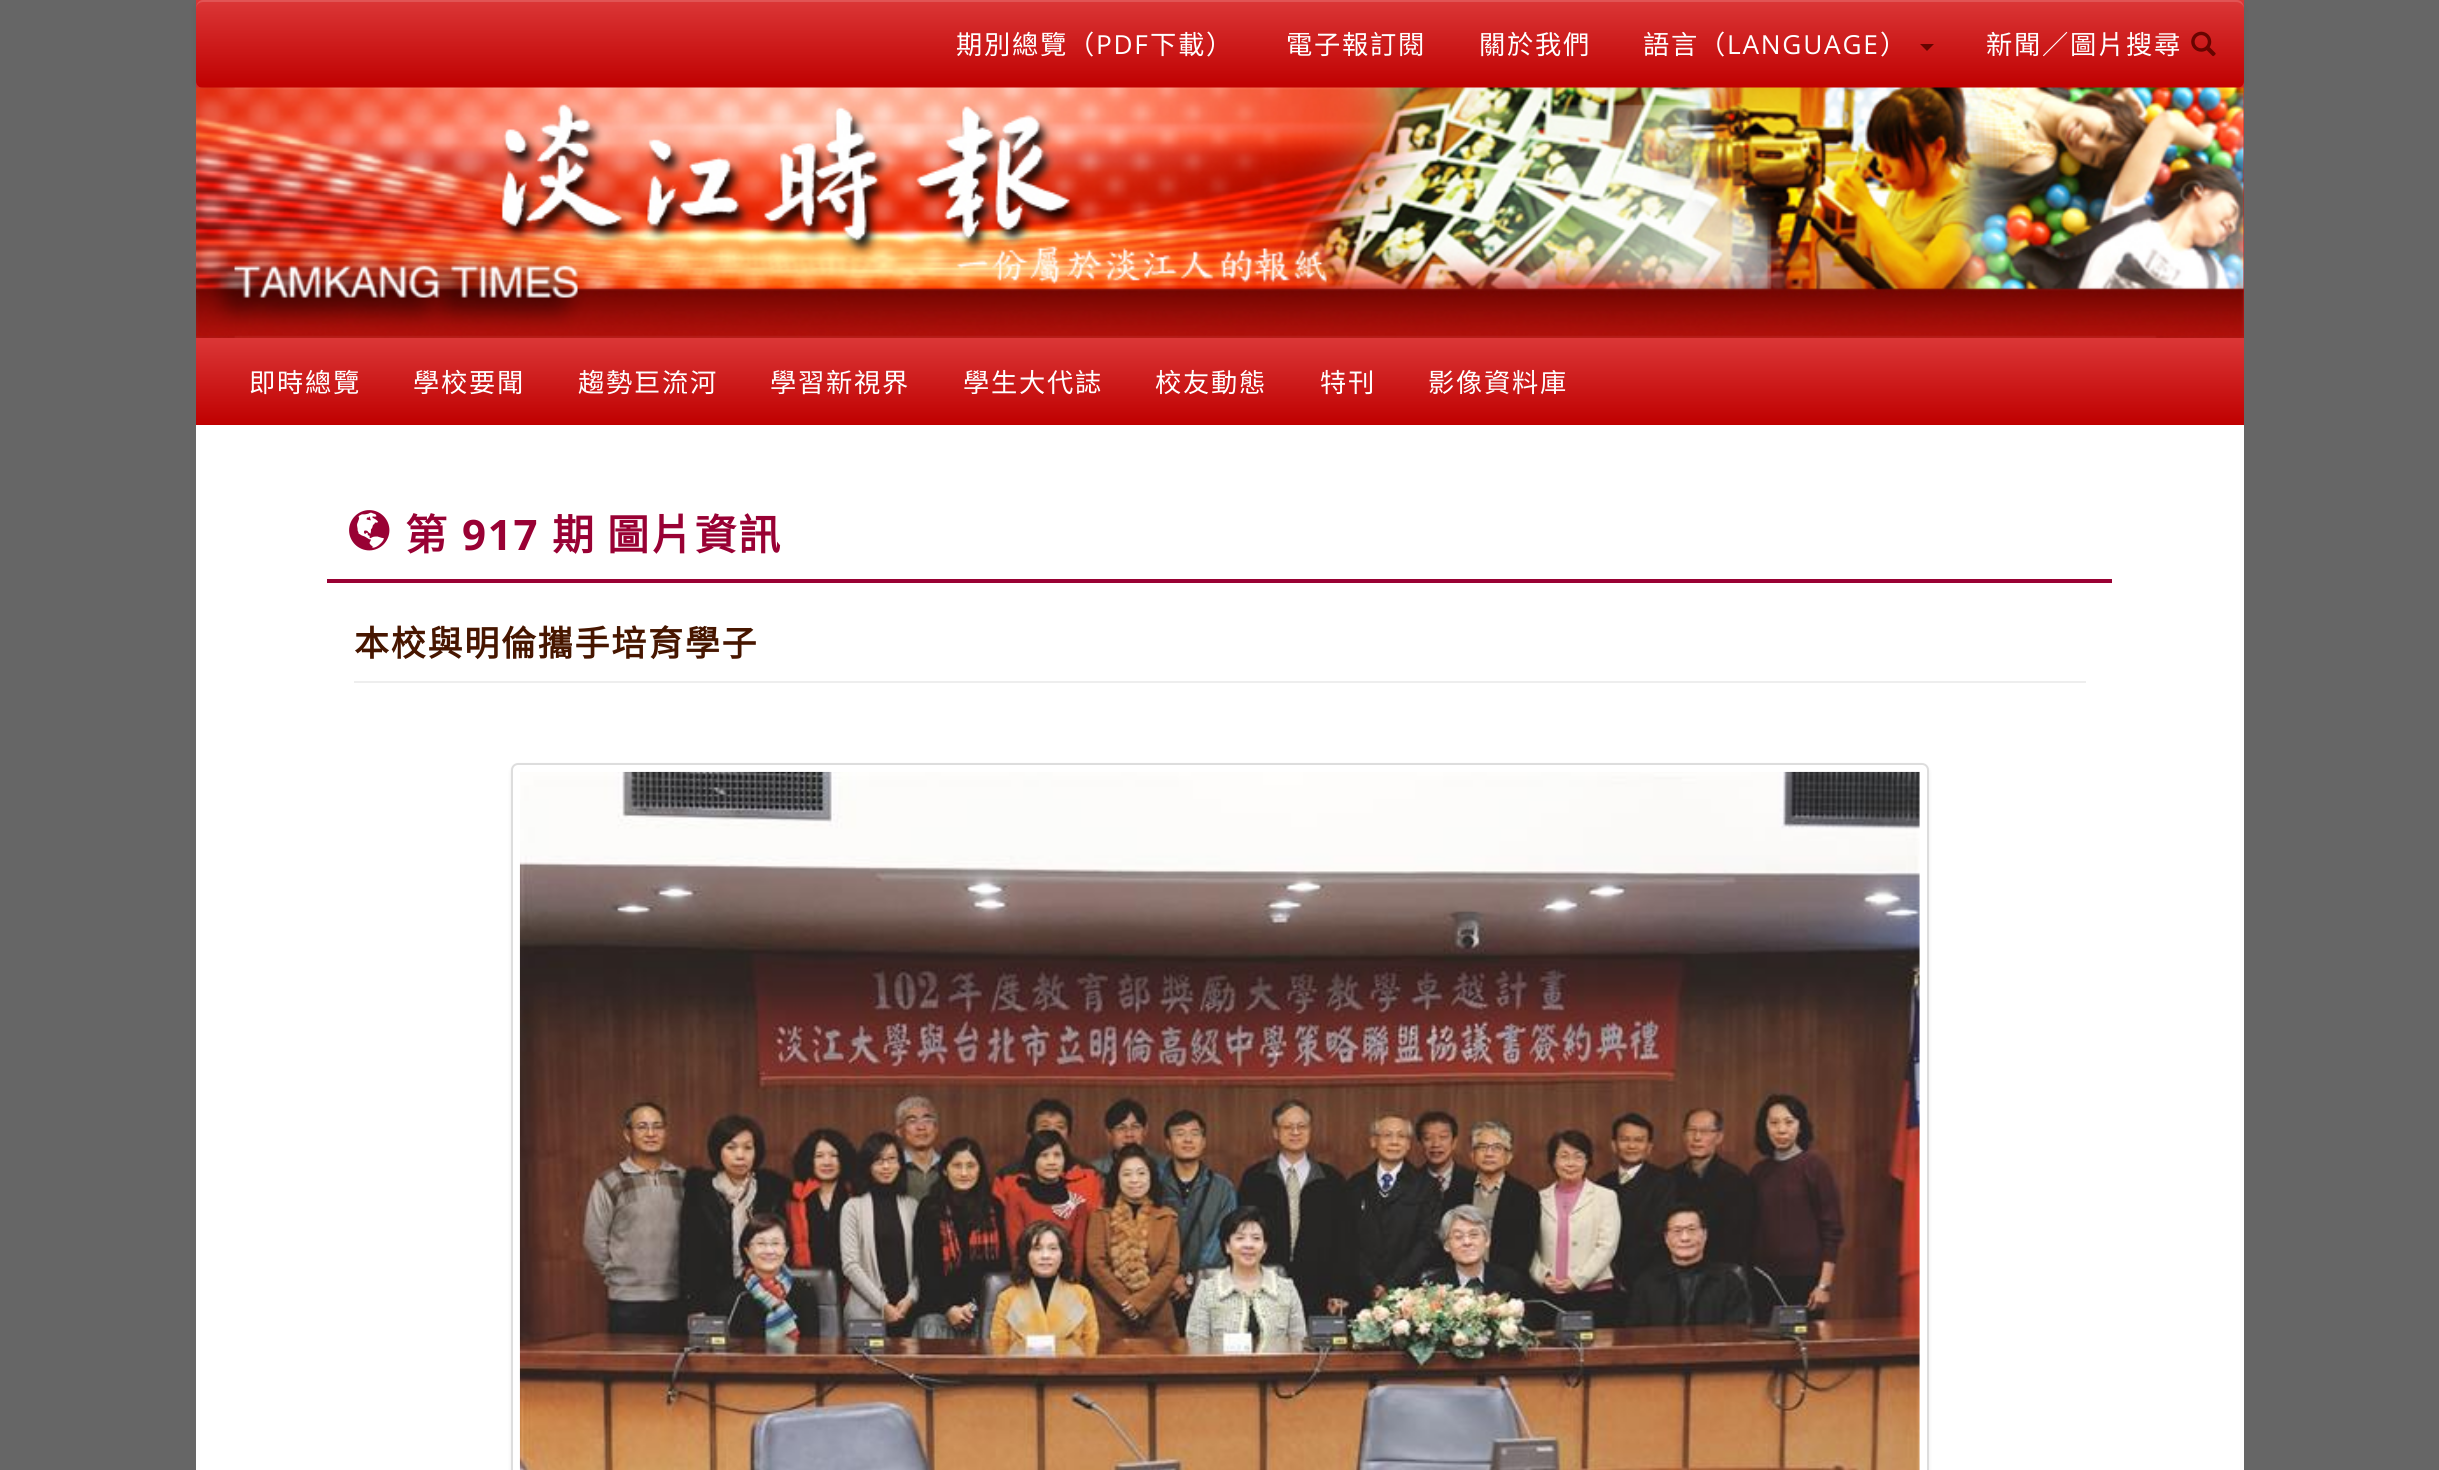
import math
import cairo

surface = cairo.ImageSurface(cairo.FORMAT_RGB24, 2439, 1470)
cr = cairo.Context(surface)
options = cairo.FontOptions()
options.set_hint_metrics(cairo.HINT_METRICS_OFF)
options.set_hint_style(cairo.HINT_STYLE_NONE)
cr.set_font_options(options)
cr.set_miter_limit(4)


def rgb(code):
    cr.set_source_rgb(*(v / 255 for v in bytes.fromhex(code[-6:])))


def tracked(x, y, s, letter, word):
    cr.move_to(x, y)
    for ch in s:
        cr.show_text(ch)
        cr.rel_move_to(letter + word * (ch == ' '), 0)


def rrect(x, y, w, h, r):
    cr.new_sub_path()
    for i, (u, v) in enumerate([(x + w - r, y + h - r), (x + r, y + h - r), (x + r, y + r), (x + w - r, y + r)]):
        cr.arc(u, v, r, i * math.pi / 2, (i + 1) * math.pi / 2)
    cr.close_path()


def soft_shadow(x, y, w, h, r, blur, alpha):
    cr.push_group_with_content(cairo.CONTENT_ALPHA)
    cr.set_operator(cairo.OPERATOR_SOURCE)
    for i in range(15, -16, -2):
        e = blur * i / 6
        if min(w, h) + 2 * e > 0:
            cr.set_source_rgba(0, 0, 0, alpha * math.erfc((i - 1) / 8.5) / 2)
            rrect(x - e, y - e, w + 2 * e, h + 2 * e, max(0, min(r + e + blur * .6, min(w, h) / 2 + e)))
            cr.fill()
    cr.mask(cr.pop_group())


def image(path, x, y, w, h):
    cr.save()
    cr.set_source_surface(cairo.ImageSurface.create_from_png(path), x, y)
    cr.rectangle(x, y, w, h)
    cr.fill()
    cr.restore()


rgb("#666666")
cr.paint()
gradient = cairo.LinearGradient(1220, 0, 1220, 425)
gradient.add_color_stop_rgba(0, 0.859, 0.216, 0.216, 1)
gradient.add_color_stop_rgba(1, 0.749, 0, 0, 1)
cr.set_source(gradient)
cr.rectangle(196, 0, 2048, 338)
cr.fill()
rgb("#000000")
soft_shadow(196, 2, 2048, 87, 7, 4.5, 0.07)
gradient = cairo.LinearGradient(1220, 0, 1220, 88)
gradient.add_color_stop_rgba(0, 0.859, 0.216, 0.216, 1)
gradient.add_color_stop_rgba(1, 0.749, 0, 0, 1)
cr.set_source(gradient)
rrect(196, 0, 2048, 88, 7)
cr.fill()
cr.set_source_rgba(1, 1, 1, 0.15)
cr.new_path()
cr.move_to(203, 2)
cr.line_to(2236, 2)
cr.curve_to(2240, 2, 2244, 5, 2244, 9)
cr.curve_to(2244, 5, 2242, 0, 2237, 0)
cr.line_to(203, 0)
cr.curve_to(198, 0, 196, 5, 196, 9)
cr.curve_to(196, 5, 199, 2, 203, 2)
cr.close_path()
cr.fill()
rgb("#670400")
cr.new_path()
cr.move_to(1920, 44)
cr.line_to(1934, 44)
cr.line_to(1927, 51)
cr.close_path()
cr.fill()
image("img/1.png", 2191, 31, 25, 26)
image("img/2.png", 196, 87, 2048, 251)
gradient = cairo.LinearGradient(1220, 338, 1220, 425)
gradient.add_color_stop_rgba(0, 0.859, 0.216, 0.216, 1)
gradient.add_color_stop_rgba(1, 0.749, 0, 0, 1)
cr.set_source(gradient)
cr.rectangle(196, 338, 2048, 87)
cr.fill()
rgb("#ffffff")
cr.rectangle(196, 425, 2048, 1045)
cr.fill()
rgb("#990134")
cr.rectangle(327, 579, 1785, 4)
cr.fill()
image("img/3.png", 349, 510, 41, 41)
rgb("#eeeeee")
cr.rectangle(354, 681, 1732, 2)
cr.fill()
rgb("#000000")
soft_shadow(511, 765, 1418, 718, 7, 2, 0.07)
rgb("#ffffff")
rrect(512, 764, 1416, 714, 6)
cr.fill_preserve()
rgb("#dddddd")
cr.stroke()
image("img/4.png", 519, 771, 1401, 699)
cr.select_font_face("Noto Sans CJK TC")
cr.set_font_size(26.25)
rgb("#ffffff")
tracked(956, 54, "期別總覽（", 1.75, 0)
cr.select_font_face("Open Sans")
tracked(1096, 54, "PDF", 1.75, 0)
cr.select_font_face("Noto Sans CJK TC")
for x, y, s in [
    (1150, 54, "下載）"),
    (1286, 54, "電子報訂閱"),
    (1479, 54, "關於我們"),
    (1643, 54, "語言（"),
]:
    tracked(x, y, s, 1.75, 0)
cr.select_font_face("Open Sans")
tracked(1727, 54, "LANGUAGE", 1.75, 0)
cr.select_font_face("Noto Sans CJK TC")
for x, y, s in [
    (1880, 54, "）"),
    (1986, 54, "新聞／圖片搜尋"),
    (249, 392, "即時總覽"),
    (413, 392, "學校要聞"),
    (578, 392, "趨勢巨流河"),
    (770, 392, "學習新視界"),
    (963, 392, "學生大代誌"),
    (1155, 392, "校友動態"),
    (1320, 392, "特刊"),
    (1428, 392, "影像資料庫"),
]:
    tracked(x, y, s, 1.75, 0)
cr.select_font_face("Noto Sans CJK TC", cairo.FONT_SLANT_NORMAL, cairo.FONT_WEIGHT_BOLD)
cr.set_font_size(42)
rgb("#990134")
tracked(405, 550, "第", 1.75, 0)
cr.select_font_face("Open Sans", cairo.FONT_SLANT_NORMAL, cairo.FONT_WEIGHT_BOLD)
tracked(462, 550, "917", 1.75, 0)
cr.select_font_face("Noto Sans CJK TC", cairo.FONT_SLANT_NORMAL, cairo.FONT_WEIGHT_BOLD)
tracked(552, 550, "期 圖片資訊", 1.75, 0)
cr.set_font_size(35)
rgb("#471600")
tracked(354, 656, "本校與明倫攜手培育學子", 1.75, 0)
surface.write_to_png("page.png")
